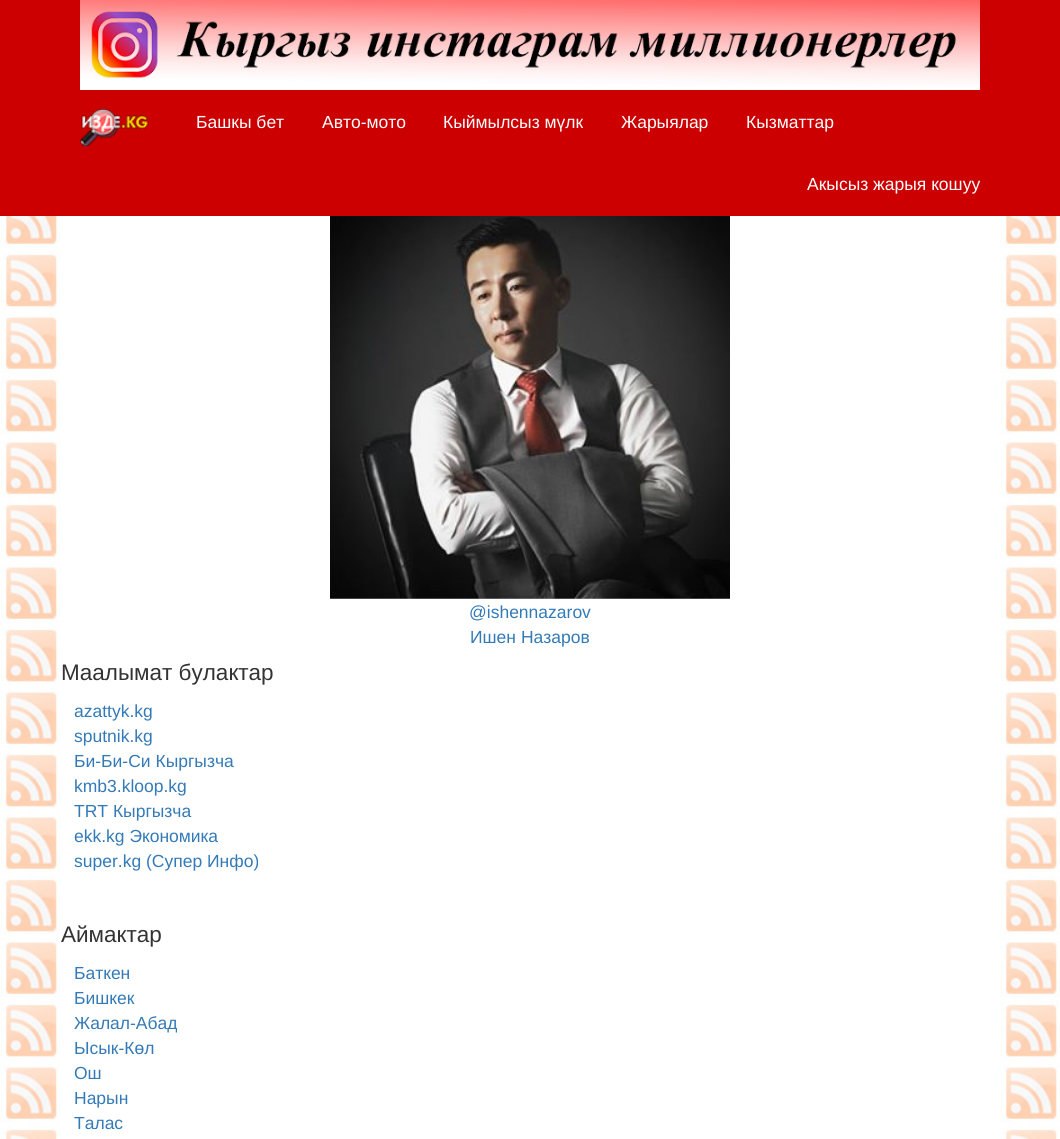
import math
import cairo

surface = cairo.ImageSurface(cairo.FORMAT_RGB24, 1060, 1139)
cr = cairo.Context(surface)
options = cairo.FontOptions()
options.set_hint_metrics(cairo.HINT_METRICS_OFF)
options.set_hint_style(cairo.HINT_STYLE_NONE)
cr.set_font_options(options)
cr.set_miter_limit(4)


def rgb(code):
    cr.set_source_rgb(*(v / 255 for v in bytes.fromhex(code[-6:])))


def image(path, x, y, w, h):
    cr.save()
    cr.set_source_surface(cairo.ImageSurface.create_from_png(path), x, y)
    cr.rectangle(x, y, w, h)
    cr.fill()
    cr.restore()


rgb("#ffffff")
cr.paint()
image("img/1.png", 0, 216, 1060, 923)
rgb("#cc0000")
cr.rectangle(0, 0, 1060, 216)
cr.fill()
image("img/2.png", 80, 0, 900, 90)
image("img/3.png", 80, 108, 69, 39)
rgb("#ffffff")
cr.rectangle(62, 216, 936, 923)
cr.fill()
image("img/4.png", 330, 216, 400, 383)
cr.select_font_face("Liberation Sans")
cr.set_font_size(17.5)
for x, y, s in [
    (196, 128, "Башкы бет"),
    (322, 128, "Авто-мото"),
    (443, 128, "Кыймылсыз мүлк"),
    (621, 128, "Жарыялар"),
    (746, 128, "Кызматтар"),
    (807, 190, "Акысыз жарыя кошуу"),
]:
    cr.move_to(x, y)
    cr.show_text(s)
rgb("#337ab7")
cr.move_to(469, 618)
cr.show_text("@ishennazarov")
cr.move_to(470, 643)
cr.show_text("Ишен Назаров")
cr.set_font_size(22.5)
rgb("#333333")
cr.move_to(61, 680)
cr.show_text("Маалымат булактар")
cr.set_font_size(17.5)
rgb("#337ab7")
for x, y, s in [
    (74, 717, "azattyk.kg"),
    (74, 742, "sputnik.kg"),
    (74, 767, "Би-Би-Си Кыргызча"),
    (74, 792, "kmb3.kloop.kg"),
    (74, 817, "TRT Кыргызча"),
    (74, 842, "ekk.kg Экономика"),
    (74, 867, "super.kg (Супер Инфо)"),
]:
    cr.move_to(x, y)
    cr.show_text(s)
cr.set_font_size(22.5)
rgb("#333333")
cr.move_to(61, 942)
cr.show_text("Аймактар")
cr.set_font_size(17.5)
rgb("#337ab7")
for x, y, s in [
    (74, 979, "Баткен"),
    (74, 1004, "Бишкек"),
    (74, 1029, "Жалал-Абад"),
    (74, 1054, "Ысык-Көл"),
    (74, 1079, "Ош"),
    (74, 1104, "Нарын"),
    (74, 1129, "Талас"),
]:
    cr.move_to(x, y)
    cr.show_text(s)
surface.write_to_png("page.png")
